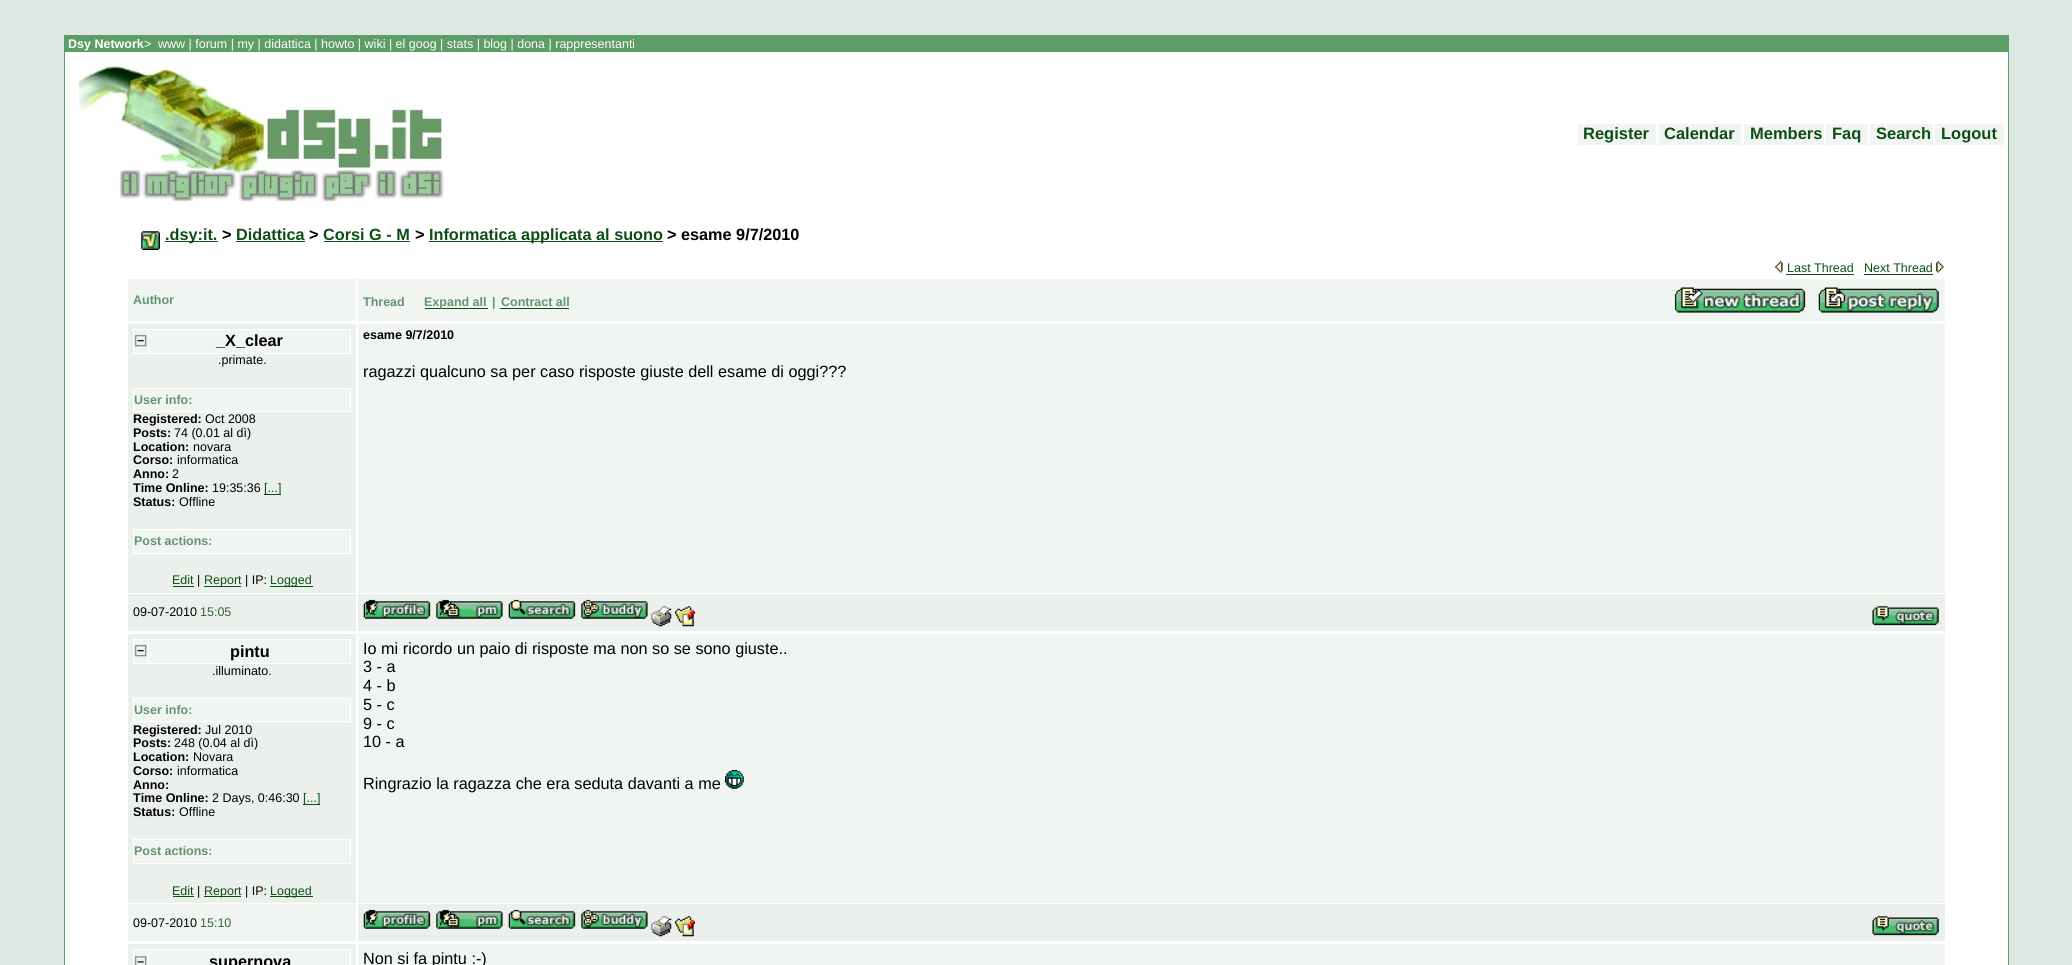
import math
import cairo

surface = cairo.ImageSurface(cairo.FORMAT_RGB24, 2072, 965)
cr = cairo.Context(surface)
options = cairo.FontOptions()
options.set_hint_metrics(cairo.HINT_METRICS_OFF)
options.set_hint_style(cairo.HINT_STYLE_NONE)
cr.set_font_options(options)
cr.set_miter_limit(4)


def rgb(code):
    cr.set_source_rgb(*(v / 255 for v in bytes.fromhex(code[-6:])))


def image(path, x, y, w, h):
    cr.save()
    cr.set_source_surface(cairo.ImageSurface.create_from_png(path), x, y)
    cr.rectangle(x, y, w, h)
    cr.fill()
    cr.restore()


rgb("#dfe7e2")
cr.paint()
rgb("#5c9e65")
cr.rectangle(64, 35, 1945, 16)
cr.fill()
rgb("#ffffff")
cr.rectangle(64.5, 51.5, 1944, 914)
cr.fill_preserve()
rgb("#5c9e65")
cr.set_line_width(1)
cr.stroke()
image("img/1.png", 78, 66, 366, 136)
for x, y, w, h, color in [
    (1578, 124, 78, 21, "#f1f5f1"),
    (1659, 124, 82, 21, "#f1f5f1"),
    (1744, 124, 80, 21, "#f1f5f1"),
    (1826, 124, 42, 21, "#f1f5f1"),
    (1870, 124, 63, 21, "#f1f5f1"),
    (1935, 124, 69, 21, "#f1f5f1"),
]:
    rgb(color)
    cr.rectangle(x, y, w, h)
    cr.fill()
image("img/2.png", 141, 231, 19, 19)
for x, y, w, h, color in [
    (165, 241, 53, 1, "#0c4e15"),
    (236, 241, 69, 1, "#0c4e15"),
    (324, 241, 86, 1, "#0c4e15"),
    (429, 241, 234, 1, "#0c4e15"),
]:
    rgb(color)
    cr.rectangle(x, y, w, h)
    cr.fill()
image("img/3.png", 1775, 261, 8, 12)
cr.rectangle(1786, 274, 68, 1)
cr.fill()
cr.rectangle(1864, 274, 69, 1)
cr.fill()
image("img/4.png", 1936, 261, 8, 12)
for x, y, w, h, color in [
    (128, 279, 228, 42, "#f1f5f1"),
    (358, 279, 1587, 42, "#f1f5f1"),
    (425, 308, 63, 1, "#0c4e15"),
    (500, 308, 69, 1, "#0c4e15"),
]:
    rgb(color)
    cr.rectangle(x, y, w, h)
    cr.fill()
image("img/5.png", 1674, 287, 132, 26)
image("img/6.png", 1818, 287, 121, 26)
for x, y, w, h, color in [
    (128, 324, 228, 269, "#ecf0ec"),
    (134, 330, 216, 23, "#f1f5f1"),
    (133, 329, 218, 1, "#ffffff"),
    (350, 329, 1, 25, "#ffffff"),
    (133, 353, 218, 1, "#ffffff"),
    (133, 329, 1, 25, "#ffffff"),
]:
    rgb(color)
    cr.rectangle(x, y, w, h)
    cr.fill()
image("img/7.png", 134, 334, 13, 13)
for x, y, w, h, color in [
    (148, 329, 1, 25, "#ffffff"),
    (134, 389, 216, 24, "#f1f5f1"),
    (133, 388, 218, 1, "#ffffff"),
    (350, 388, 1, 25, "#ffffff"),
    (133, 411, 218, 1, "#ffffff"),
    (133, 388, 1, 25, "#ffffff"),
    (264, 494, 17, 1, "#0c4e15"),
    (134, 530, 216, 23, "#f1f5f1"),
    (133, 529, 218, 1, "#ffffff"),
    (350, 529, 1, 25, "#ffffff"),
    (133, 553, 218, 1, "#ffffff"),
    (133, 529, 1, 25, "#ffffff"),
    (173, 586, 21, 1, "#0c4e15"),
    (204, 586, 37, 1, "#0c4e15"),
    (270, 586, 43, 1, "#0c4e15"),
    (358, 324, 1587, 269, "#f1f5f1"),
    (128, 594, 228, 37, "#ecf0ec"),
    (358, 594, 1587, 37, "#ecf0ec"),
]:
    rgb(color)
    cr.rectangle(x, y, w, h)
    cr.fill()
image("img/8.png", 363, 599, 68, 20)
image("img/9.png", 436, 599, 67, 20)
image("img/10.png", 508, 599, 68, 20)
image("img/11.png", 581, 599, 67, 20)
image("img/12.png", 651, 606, 21, 21)
image("img/13.png", 675, 606, 20, 21)
image("img/14.png", 1872, 606, 67, 20)
for x, y, w, h, color in [
    (128, 634, 228, 269, "#ecf0ec"),
    (134, 640, 216, 23, "#f1f5f1"),
    (133, 639, 218, 1, "#ffffff"),
    (350, 639, 1, 25, "#ffffff"),
    (133, 663, 218, 1, "#ffffff"),
    (133, 639, 1, 25, "#ffffff"),
]:
    rgb(color)
    cr.rectangle(x, y, w, h)
    cr.fill()
image("img/7.png", 134, 644, 13, 13)
for x, y, w, h, color in [
    (148, 639, 1, 25, "#ffffff"),
    (134, 699, 216, 24, "#f1f5f1"),
    (133, 698, 218, 1, "#ffffff"),
    (350, 698, 1, 25, "#ffffff"),
    (133, 721, 218, 1, "#ffffff"),
    (133, 698, 1, 25, "#ffffff"),
    (303, 804, 17, 1, "#0c4e15"),
    (134, 840, 216, 23, "#f1f5f1"),
    (133, 839, 218, 1, "#ffffff"),
    (350, 839, 1, 25, "#ffffff"),
    (133, 863, 218, 1, "#ffffff"),
    (133, 839, 1, 25, "#ffffff"),
    (173, 896, 21, 1, "#0c4e15"),
    (204, 896, 37, 1, "#0c4e15"),
    (270, 896, 43, 1, "#0c4e15"),
    (358, 634, 1587, 269, "#f1f5f1"),
]:
    rgb(color)
    cr.rectangle(x, y, w, h)
    cr.fill()
image("img/15.png", 725, 770, 19, 19)
cr.rectangle(128, 904, 228, 37)
cr.fill()
rgb("#ecf0ec")
cr.rectangle(358, 904, 1587, 37)
cr.fill()
image("img/8.png", 363, 909, 68, 20)
image("img/9.png", 436, 909, 67, 20)
image("img/10.png", 508, 909, 68, 20)
image("img/11.png", 581, 909, 67, 20)
image("img/12.png", 651, 916, 21, 21)
image("img/13.png", 675, 916, 20, 21)
image("img/14.png", 1872, 916, 67, 20)
for x, y, w, h, color in [
    (128, 944, 228, 21, "#ecf0ec"),
    (134, 950, 216, 15, "#f1f5f1"),
    (133, 949, 218, 1, "#ffffff"),
    (350, 949, 1, 16, "#ffffff"),
    (133, 949, 1, 16, "#ffffff"),
]:
    rgb(color)
    cr.rectangle(x, y, w, h)
    cr.fill()
image("img/16.png", 134, 956, 13, 9)
cr.rectangle(148, 949, 1, 16)
cr.fill()
rgb("#f1f5f1")
cr.rectangle(358, 944, 1587, 21)
cr.fill()
cr.select_font_face("Liberation Sans", cairo.FONT_SLANT_NORMAL, cairo.FONT_WEIGHT_BOLD)
cr.set_font_size(12.5)
rgb("#ffffff")
cr.move_to(68, 48)
cr.show_text("Dsy Network")
cr.select_font_face("Liberation Sans")
cr.move_to(144, 48)
cr.show_text(">")
cr.move_to(158, 48)
cr.show_text("www | forum | my | didattica | howto | wiki | el goog | stats | blog | dona | rappresentanti")
cr.select_font_face("Liberation Sans", cairo.FONT_SLANT_NORMAL, cairo.FONT_WEIGHT_BOLD)
cr.set_font_size(16.5)
rgb("#0c4e15")
for x, y, s in [
    (1583, 139, "Register"),
    (1664, 139, "Calendar"),
    (1750, 139, "Members"),
    (1832, 139, "Faq"),
    (1876, 139, "Search"),
    (1941, 139, "Logout"),
]:
    cr.move_to(x, y)
    cr.show_text(s)
cr.set_font_size(16.25)
cr.move_to(165, 240)
cr.show_text(".dsy:it.")
rgb("#000000")
cr.move_to(222, 240)
cr.show_text(">")
rgb("#0c4e15")
cr.move_to(236, 240)
cr.show_text("Didattica")
rgb("#000000")
cr.move_to(309, 240)
cr.show_text(">")
rgb("#0c4e15")
cr.move_to(323, 240)
cr.show_text("Corsi G - M")
rgb("#000000")
cr.move_to(415, 240)
cr.show_text(">")
rgb("#0c4e15")
cr.move_to(429, 240)
cr.show_text("Informatica applicata al suono")
rgb("#000000")
cr.move_to(667, 240)
cr.show_text("> esame 9/7/2010")
cr.select_font_face("Liberation Sans")
cr.set_font_size(12.5)
rgb("#0c4e15")
cr.move_to(1787, 272)
cr.show_text("Last Thread")
cr.move_to(1864, 272)
cr.show_text("Next Thread")
cr.select_font_face("Liberation Sans", cairo.FONT_SLANT_NORMAL, cairo.FONT_WEIGHT_BOLD)
rgb("#639374")
for x, y, s in [
    (133, 304, "Author"),
    (363, 306, "Thread"),
    (424, 306, "Expand all"),
    (492, 306, "|"),
    (501, 306, "Contract all"),
]:
    cr.move_to(x, y)
    cr.show_text(s)
cr.set_font_size(16.25)
rgb("#000000")
cr.move_to(216, 346)
cr.show_text("_X_clear")
cr.select_font_face("Liberation Sans")
cr.set_font_size(12.5)
cr.move_to(218, 364)
cr.show_text(".primate.")
cr.select_font_face("Liberation Sans", cairo.FONT_SLANT_NORMAL, cairo.FONT_WEIGHT_BOLD)
rgb("#639374")
cr.move_to(134, 404)
cr.show_text("User info:")
rgb("#000000")
cr.move_to(133, 423)
cr.show_text("Registered:")
cr.select_font_face("Liberation Sans")
cr.move_to(205, 423)
cr.show_text("Oct 2008")
cr.select_font_face("Liberation Sans", cairo.FONT_SLANT_NORMAL, cairo.FONT_WEIGHT_BOLD)
cr.move_to(133, 437)
cr.show_text("Posts:")
cr.select_font_face("Liberation Sans")
cr.move_to(174, 437)
cr.show_text("74 (0.01 al dì)")
cr.select_font_face("Liberation Sans", cairo.FONT_SLANT_NORMAL, cairo.FONT_WEIGHT_BOLD)
cr.move_to(133, 451)
cr.show_text("Location:")
cr.select_font_face("Liberation Sans")
cr.move_to(193, 451)
cr.show_text("novara")
cr.select_font_face("Liberation Sans", cairo.FONT_SLANT_NORMAL, cairo.FONT_WEIGHT_BOLD)
cr.move_to(133, 464)
cr.show_text("Corso:")
cr.select_font_face("Liberation Sans")
cr.move_to(177, 464)
cr.show_text("informatica")
cr.select_font_face("Liberation Sans", cairo.FONT_SLANT_NORMAL, cairo.FONT_WEIGHT_BOLD)
cr.move_to(133, 478)
cr.show_text("Anno:")
cr.select_font_face("Liberation Sans")
cr.move_to(172, 478)
cr.show_text("2")
cr.select_font_face("Liberation Sans", cairo.FONT_SLANT_NORMAL, cairo.FONT_WEIGHT_BOLD)
cr.move_to(133, 492)
cr.show_text("Time Online:")
cr.select_font_face("Liberation Sans")
cr.move_to(212, 492)
cr.show_text("19:35:36")
rgb("#0c4e15")
cr.move_to(264, 492)
cr.show_text("[...]")
cr.select_font_face("Liberation Sans", cairo.FONT_SLANT_NORMAL, cairo.FONT_WEIGHT_BOLD)
rgb("#000000")
cr.move_to(133, 506)
cr.show_text("Status:")
cr.select_font_face("Liberation Sans")
cr.move_to(179, 506)
cr.show_text("Offline")
cr.select_font_face("Liberation Sans", cairo.FONT_SLANT_NORMAL, cairo.FONT_WEIGHT_BOLD)
rgb("#639374")
cr.move_to(134, 545)
cr.show_text("Post actions:")
cr.select_font_face("Liberation Sans")
rgb("#0c4e15")
cr.move_to(172, 584)
cr.show_text("Edit")
rgb("#000000")
cr.move_to(197, 584)
cr.show_text("|")
rgb("#0c4e15")
cr.move_to(204, 584)
cr.show_text("Report")
rgb("#000000")
cr.move_to(245, 584)
cr.show_text("| IP:")
rgb("#0c4e15")
cr.move_to(270, 584)
cr.show_text("Logged")
cr.select_font_face("Liberation Sans", cairo.FONT_SLANT_NORMAL, cairo.FONT_WEIGHT_BOLD)
rgb("#000000")
cr.move_to(363, 339)
cr.show_text("esame 9/7/2010")
cr.select_font_face("Liberation Sans")
cr.set_font_size(16.25)
cr.move_to(363, 377)
cr.show_text("ragazzi qualcuno sa per caso risposte giuste dell esame di oggi???")
cr.set_font_size(12.5)
cr.move_to(133, 616)
cr.show_text("09-07-2010")
rgb("#336633")
cr.move_to(200, 616)
cr.show_text("15:05")
cr.select_font_face("Liberation Sans", cairo.FONT_SLANT_NORMAL, cairo.FONT_WEIGHT_BOLD)
cr.set_font_size(16.25)
rgb("#000000")
cr.move_to(230, 657)
cr.show_text("pintu")
cr.select_font_face("Liberation Sans")
cr.set_font_size(12.5)
cr.move_to(212, 675)
cr.show_text(".illuminato.")
cr.select_font_face("Liberation Sans", cairo.FONT_SLANT_NORMAL, cairo.FONT_WEIGHT_BOLD)
rgb("#639374")
cr.move_to(134, 714)
cr.show_text("User info:")
rgb("#000000")
cr.move_to(133, 734)
cr.show_text("Registered:")
cr.select_font_face("Liberation Sans")
cr.move_to(205, 734)
cr.show_text("Jul 2010")
cr.select_font_face("Liberation Sans", cairo.FONT_SLANT_NORMAL, cairo.FONT_WEIGHT_BOLD)
cr.move_to(133, 747)
cr.show_text("Posts:")
cr.select_font_face("Liberation Sans")
cr.move_to(174, 747)
cr.show_text("248 (0.04 al dì)")
cr.select_font_face("Liberation Sans", cairo.FONT_SLANT_NORMAL, cairo.FONT_WEIGHT_BOLD)
cr.move_to(133, 761)
cr.show_text("Location:")
cr.select_font_face("Liberation Sans")
cr.move_to(193, 761)
cr.show_text("Novara")
cr.select_font_face("Liberation Sans", cairo.FONT_SLANT_NORMAL, cairo.FONT_WEIGHT_BOLD)
cr.move_to(133, 775)
cr.show_text("Corso:")
cr.select_font_face("Liberation Sans")
cr.move_to(177, 775)
cr.show_text("informatica")
cr.select_font_face("Liberation Sans", cairo.FONT_SLANT_NORMAL, cairo.FONT_WEIGHT_BOLD)
cr.move_to(133, 789)
cr.show_text("Anno:")
cr.move_to(133, 802)
cr.show_text("Time Online:")
cr.select_font_face("Liberation Sans")
cr.move_to(212, 802)
cr.show_text("2 Days, 0:46:30")
rgb("#0c4e15")
cr.move_to(303, 802)
cr.show_text("[...]")
cr.select_font_face("Liberation Sans", cairo.FONT_SLANT_NORMAL, cairo.FONT_WEIGHT_BOLD)
rgb("#000000")
cr.move_to(133, 816)
cr.show_text("Status:")
cr.select_font_face("Liberation Sans")
cr.move_to(179, 816)
cr.show_text("Offline")
cr.select_font_face("Liberation Sans", cairo.FONT_SLANT_NORMAL, cairo.FONT_WEIGHT_BOLD)
rgb("#639374")
cr.move_to(134, 855)
cr.show_text("Post actions:")
cr.select_font_face("Liberation Sans")
rgb("#0c4e15")
cr.move_to(172, 895)
cr.show_text("Edit")
rgb("#000000")
cr.move_to(197, 895)
cr.show_text("|")
rgb("#0c4e15")
cr.move_to(204, 895)
cr.show_text("Report")
rgb("#000000")
cr.move_to(245, 895)
cr.show_text("| IP:")
rgb("#0c4e15")
cr.move_to(270, 895)
cr.show_text("Logged")
cr.set_font_size(16.25)
rgb("#000000")
for x, y, s in [
    (363, 654, "Io mi ricordo un paio di risposte ma non so se sono giuste.."),
    (363, 672, "3 - a"),
    (363, 691, "4 - b"),
    (363, 710, "5 - c"),
    (363, 729, "9 - c"),
    (363, 747, "10 - a"),
    (363, 789, "Ringrazio la ragazza che era seduta davanti a me"),
]:
    cr.move_to(x, y)
    cr.show_text(s)
cr.set_font_size(12.5)
cr.move_to(133, 927)
cr.show_text("09-07-2010")
rgb("#336633")
cr.move_to(200, 927)
cr.show_text("15:10")
cr.select_font_face("Liberation Sans", cairo.FONT_SLANT_NORMAL, cairo.FONT_WEIGHT_BOLD)
cr.set_font_size(16.25)
rgb("#000000")
cr.move_to(209, 967)
cr.show_text("supernova")
cr.select_font_face("Liberation Sans")
cr.move_to(363, 964)
cr.show_text("Non si fa pintu :-)")
surface.write_to_png("page.png")
